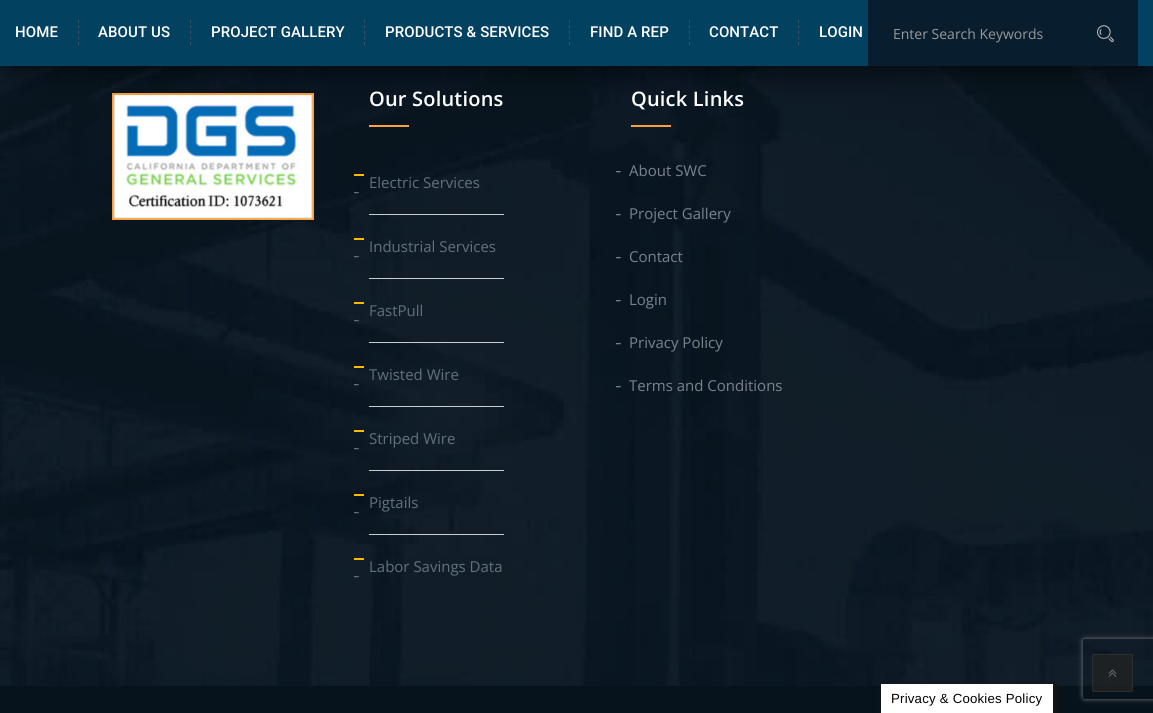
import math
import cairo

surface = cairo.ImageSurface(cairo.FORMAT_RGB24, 1153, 713)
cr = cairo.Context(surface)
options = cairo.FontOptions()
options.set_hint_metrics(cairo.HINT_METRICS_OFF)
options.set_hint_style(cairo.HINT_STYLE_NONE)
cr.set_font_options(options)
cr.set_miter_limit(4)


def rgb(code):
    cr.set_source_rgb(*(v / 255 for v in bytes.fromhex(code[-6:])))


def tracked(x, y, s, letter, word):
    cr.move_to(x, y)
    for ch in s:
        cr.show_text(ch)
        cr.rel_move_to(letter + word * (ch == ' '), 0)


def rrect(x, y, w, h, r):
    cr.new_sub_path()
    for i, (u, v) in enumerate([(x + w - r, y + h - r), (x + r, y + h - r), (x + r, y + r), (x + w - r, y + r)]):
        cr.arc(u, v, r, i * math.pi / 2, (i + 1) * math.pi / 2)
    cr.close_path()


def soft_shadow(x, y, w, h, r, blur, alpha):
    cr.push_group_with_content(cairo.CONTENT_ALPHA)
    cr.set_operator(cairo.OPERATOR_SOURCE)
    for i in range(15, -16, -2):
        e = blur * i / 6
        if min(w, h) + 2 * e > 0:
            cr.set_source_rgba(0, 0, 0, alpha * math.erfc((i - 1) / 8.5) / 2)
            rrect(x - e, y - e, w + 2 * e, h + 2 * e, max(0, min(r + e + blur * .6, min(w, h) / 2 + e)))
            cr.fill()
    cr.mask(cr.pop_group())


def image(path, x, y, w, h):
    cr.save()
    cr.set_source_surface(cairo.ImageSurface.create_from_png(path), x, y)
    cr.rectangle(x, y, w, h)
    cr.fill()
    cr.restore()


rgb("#ffffff")
cr.paint()
image("img/2.png", 0, 66, 1153, 620)
cr.rectangle(113, 94, 200, 125)
rgb("#f9a13d")
cr.stroke()
image("img/3.png", 113, 95, 200, 124)
rgb("#000000")
soft_shadow(12, 25, 1129, 42, 0, 15, 0.75)
rgb("#034161")
cr.rectangle(0, 0, 1153, 66)
cr.fill()
cr.new_path()
cr.move_to(78.5, 20)
cr.line_to(78.5, 45)
rgb("#3f5262")
cr.set_line_width(1)
cr.set_dash([3, 2.5])
cr.stroke()
cr.new_path()
cr.move_to(190.5, 20)
cr.line_to(190.5, 45)
cr.stroke()
cr.new_path()
cr.move_to(364.5, 20)
cr.line_to(364.5, 45)
cr.stroke()
cr.new_path()
cr.move_to(569.5, 20)
cr.line_to(569.5, 45)
cr.stroke()
cr.new_path()
cr.move_to(689.5, 20)
cr.line_to(689.5, 45)
cr.stroke()
cr.new_path()
cr.move_to(798.5, 20)
cr.line_to(798.5, 45)
cr.stroke()
rgb("#081e2f")
cr.rectangle(868, 0, 270, 66)
cr.fill()
image("img/1.png", 1097, 25, 17, 17)
rgb("#f9a13d")
cr.rectangle(369, 125, 40, 2)
cr.fill()
rgb("#ffba00")
cr.rectangle(354, 174, 10, 2)
cr.fill()
image("img/4.png", 354, 192, 5, 2)
rgb("#cccccc")
cr.rectangle(369, 214, 135, 1)
cr.fill()
rgb("#ffba00")
cr.rectangle(354, 238, 10, 2)
cr.fill()
image("img/5.png", 354, 256, 5, 2)
rgb("#cccccc")
cr.rectangle(369, 278, 135, 1)
cr.fill()
rgb("#ffba00")
cr.rectangle(354, 302, 10, 2)
cr.fill()
image("img/6.png", 354, 320, 5, 2)
rgb("#cccccc")
cr.rectangle(369, 342, 135, 1)
cr.fill()
rgb("#ffba00")
cr.rectangle(354, 366, 10, 2)
cr.fill()
image("img/7.png", 354, 384, 5, 2)
rgb("#cccccc")
cr.rectangle(369, 406, 135, 1)
cr.fill()
rgb("#ffba00")
cr.rectangle(354, 430, 10, 2)
cr.fill()
image("img/8.png", 354, 448, 5, 2)
rgb("#cccccc")
cr.rectangle(369, 470, 135, 1)
cr.fill()
rgb("#ffba00")
cr.rectangle(354, 494, 10, 2)
cr.fill()
image("img/9.png", 354, 512, 5, 2)
rgb("#cccccc")
cr.rectangle(369, 534, 135, 1)
cr.fill()
rgb("#ffba00")
cr.rectangle(354, 558, 10, 2)
cr.fill()
image("img/5.png", 354, 576, 5, 2)
rgb("#f9a13d")
cr.rectangle(631, 125, 40, 2)
cr.fill()
image("img/10.png", 616, 171, 5, 2)
image("img/10.png", 616, 214, 5, 2)
image("img/10.png", 616, 257, 5, 2)
image("img/10.png", 616, 300, 5, 2)
image("img/10.png", 616, 343, 5, 2)
image("img/11.png", 616, 386, 5, 2)
rgb("#06121c")
cr.rectangle(0, 686, 1153, 27)
cr.fill()
cr.save()
cr.set_fill_rule(cairo.FILL_RULE_EVEN_ODD)
cr.new_path()
cr.move_to(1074, 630)
cr.line_to(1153, 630)
cr.line_to(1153, 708)
cr.line_to(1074, 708)
cr.close_path()
cr.move_to(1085, 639)
cr.line_to(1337, 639)
cr.curve_to(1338, 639, 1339, 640, 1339, 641)
cr.line_to(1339, 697)
cr.curve_to(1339, 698, 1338, 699, 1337, 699)
cr.line_to(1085, 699)
cr.curve_to(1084, 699, 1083, 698, 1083, 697)
cr.line_to(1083, 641)
cr.curve_to(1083, 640, 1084, 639, 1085, 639)
cr.close_path()
cr.clip()
rgb("#808080")
soft_shadow(1083, 639, 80, 60, 2, 2.5, 1)
cr.restore()
cr.set_source_rgba(0.133, 0.133, 0.133, 0.8)
rrect(1092, 654, 41, 38, 2)
cr.fill()
rrect(1092.5, 654.5, 40, 37, 1.5)
cr.set_source_rgba(0.2, 0.2, 0.2, 0.8)
cr.set_dash([])
cr.stroke()
image("img/12.png", 1108, 669, 9, 8)
rgb("#161616")
soft_shadow(881, 684, 176, 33, 0, 2.5, 1)
rgb("#ffffff")
cr.rectangle(881, 684, 172, 29)
cr.fill()
cr.select_font_face("Roboto Medium")
cr.set_font_size(15)
for x, y, s in [
    (15, 37, "HOME"),
    (98, 37, "ABOUT US"),
    (211, 37, "PROJECT GALLERY"),
    (385, 37, "PRODUCTS & SERVICES"),
    (590, 37, "FIND A REP"),
    (709, 37, "CONTACT"),
    (819, 37, "LOGIN"),
]:
    tracked(x, y, s, 0.1, 0)
cr.select_font_face("Open Sans")
cr.set_font_size(14)
rgb("#999999")
cr.move_to(893, 39)
cr.show_text("Enter Search Keywords")
cr.select_font_face("Open Sans SemiBold")
cr.set_font_size(20)
rgb("#ffffff")
tracked(369, 106, "Our Solutions", 0.2, 0)
cr.select_font_face("Open Sans")
cr.set_font_size(15)
rgb("#627279")
for x, y, s in [
    (369, 188, "Electric Services"),
    (369, 252, "Industrial Services"),
    (369, 316, "FastPull"),
    (369, 380, "Twisted Wire"),
    (369, 444, "Striped Wire"),
    (369, 508, "Pigtails"),
    (369, 572, "Labor Savings Data"),
]:
    cr.move_to(x, y)
    cr.show_text(s)
cr.select_font_face("Open Sans SemiBold")
cr.set_font_size(20)
rgb("#ffffff")
tracked(631, 106, "Quick Links", 0.2, 0)
cr.select_font_face("Open Sans")
cr.set_font_size(15)
rgb("#7b838e")
for x, y, s in [
    (629, 176, "About SWC"),
    (629, 219, "Project Gallery"),
    (629, 262, "Contact"),
    (629, 305, "Login"),
    (629, 348, "Privacy Policy"),
    (629, 391, "Terms and Conditions"),
]:
    cr.move_to(x, y)
    cr.show_text(s)
cr.select_font_face("Liberation Sans")
cr.set_font_size(13.25)
rgb("#000000")
tracked(891, 703, "Privacy & Cookies Policy", 0.2, 0)
surface.write_to_png("page.png")
